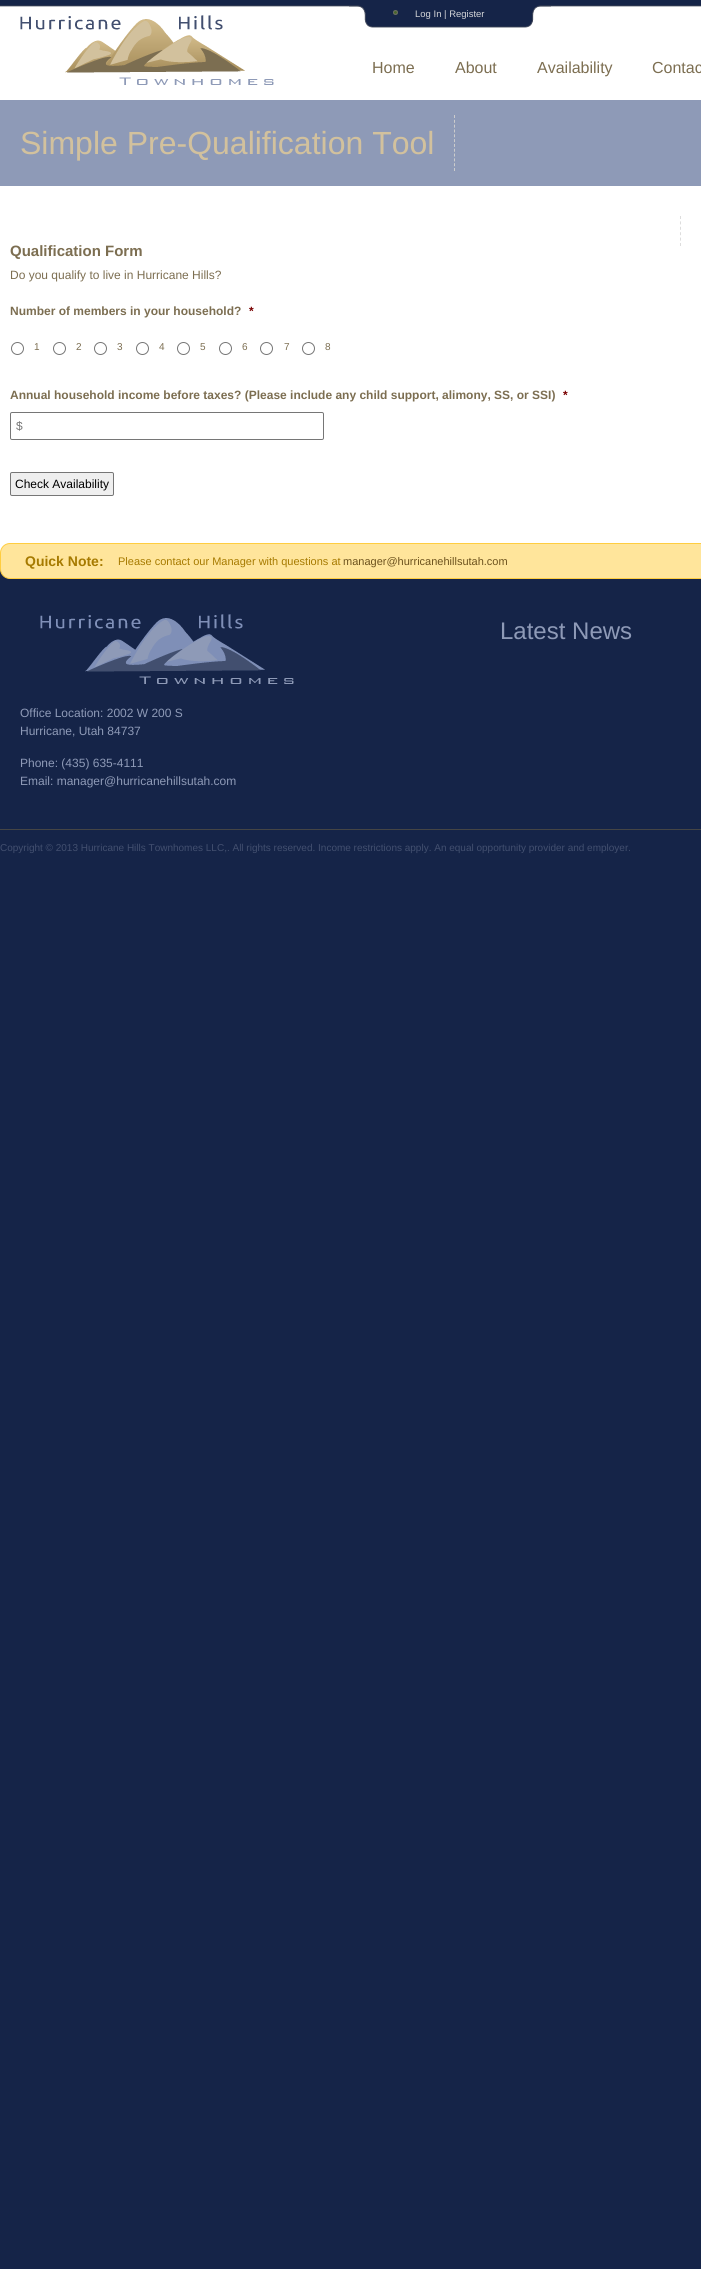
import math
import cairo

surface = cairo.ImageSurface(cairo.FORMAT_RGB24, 701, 2269)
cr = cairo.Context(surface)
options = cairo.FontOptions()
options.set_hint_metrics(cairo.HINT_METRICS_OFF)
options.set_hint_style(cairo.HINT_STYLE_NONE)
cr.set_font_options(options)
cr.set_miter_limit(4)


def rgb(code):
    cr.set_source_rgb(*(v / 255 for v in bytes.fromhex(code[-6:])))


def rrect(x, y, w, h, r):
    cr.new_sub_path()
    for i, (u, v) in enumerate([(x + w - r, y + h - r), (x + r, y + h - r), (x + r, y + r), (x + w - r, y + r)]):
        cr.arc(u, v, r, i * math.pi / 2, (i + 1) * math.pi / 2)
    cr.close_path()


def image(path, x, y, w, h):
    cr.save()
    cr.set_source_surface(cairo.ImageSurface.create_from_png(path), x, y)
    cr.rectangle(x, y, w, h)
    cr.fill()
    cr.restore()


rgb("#152448")
cr.paint()
rgb("#ffffff")
cr.rectangle(0, 6, 701, 94)
cr.fill()
image("img/1.png", 0, 0, 701, 7)
image("img/2.png", 349, 5, 30, 23)
image("img/3.png", 379, 5, 142, 23)
image("img/4.png", 393, 10, 5, 5)
image("img/5.png", 521, 5, 30, 23)
image("img/6.png", 20, 15, 254, 70)
rgb("#8e9ab7")
cr.rectangle(0, 100, 701, 86)
cr.fill()
cr.new_path()
cr.move_to(454.5, 115)
cr.line_to(454.5, 171)
rgb("#cccccc")
cr.set_line_width(1)
cr.set_dash([3, 1.82])
cr.stroke()
rgb("#ffffff")
cr.rectangle(0, 186, 701, 367)
cr.fill()
cr.new_path()
cr.move_to(680.5, 216)
cr.line_to(680.5, 246)
rgb("#dddddd")
cr.set_dash([3, 2.4])
cr.stroke()
cr.arc(17.5, 348.5, 6, 0, 2 * math.pi)
rgb("#767676")
cr.set_dash([])
cr.stroke()
cr.arc(59.5, 348.5, 6, 0, 2 * math.pi)
cr.stroke()
cr.arc(100.5, 348.5, 6, 0, 2 * math.pi)
cr.stroke()
cr.arc(142.5, 348.5, 6, 0, 2 * math.pi)
cr.stroke()
cr.arc(183.5, 348.5, 6, 0, 2 * math.pi)
cr.stroke()
cr.arc(225.5, 348.5, 6, 0, 2 * math.pi)
cr.stroke()
cr.arc(266.5, 348.5, 6, 0, 2 * math.pi)
cr.stroke()
cr.arc(308.5, 348.5, 6, 0, 2 * math.pi)
cr.stroke()
rrect(10.5, 412.5, 313, 27, 1.5)
cr.stroke()
rgb("#efefef")
rrect(10.5, 472.5, 103, 23, 1.5)
cr.fill_preserve()
rgb("#767676")
cr.stroke()
rgb("#ffe59b")
rrect(0.5, 543.5, 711, 35, 9.5)
cr.fill_preserve()
rgb("#ffcd40")
cr.stroke()
image("img/7.png", 40, 614, 254, 70)
rgb("#454545")
cr.rectangle(0, 829, 701, 1)
cr.fill()
cr.select_font_face("Liberation Sans")
cr.set_font_size(9.5)
rgb("#d4d5d8")
cr.move_to(415, 17)
cr.show_text("Log In | Register")
cr.set_font_size(16)
rgb("#7c6e51")
for x, y, s in [
    (372, 73, "Home"),
    (455, 73, "About"),
    (537, 73, "Availability"),
    (652, 73, "Contac"),
]:
    cr.move_to(x, y)
    cr.show_text(s)
cr.set_font_size(32)
rgb("#d2c19d")
cr.move_to(20, 154)
cr.show_text("Simple Pre-Qualification Tool")
cr.select_font_face("Liberation Sans", cairo.FONT_SLANT_NORMAL, cairo.FONT_WEIGHT_BOLD)
cr.set_font_size(15)
rgb("#7c6e51")
cr.move_to(10, 256)
cr.show_text("Qualification Form")
cr.select_font_face("Liberation Sans")
cr.set_font_size(12)
cr.move_to(10, 279)
cr.show_text("Do you qualify to live in Hurricane Hills?")
cr.select_font_face("Liberation Sans", cairo.FONT_SLANT_NORMAL, cairo.FONT_WEIGHT_BOLD)
cr.move_to(10, 315)
cr.show_text("Number of members in your household?")
rgb("#790000")
cr.move_to(249, 315)
cr.show_text("*")
cr.select_font_face("Liberation Sans")
cr.set_font_size(10)
rgb("#7c6e51")
for x, y, s in [
    (34, 350, "1"),
    (76, 350, "2"),
    (117, 350, "3"),
    (159, 350, "4"),
    (200, 350, "5"),
    (242, 350, "6"),
    (284, 350, "7"),
    (325, 350, "8"),
]:
    cr.move_to(x, y)
    cr.show_text(s)
cr.select_font_face("Liberation Sans", cairo.FONT_SLANT_NORMAL, cairo.FONT_WEIGHT_BOLD)
cr.set_font_size(12)
cr.move_to(10, 399)
cr.show_text("Annual household income before taxes? (Please include any child support, alimony, SS, or SSI)")
rgb("#790000")
cr.move_to(563, 399)
cr.show_text("*")
cr.select_font_face("Liberation Sans")
rgb("#757575")
cr.move_to(16, 430)
cr.show_text("$")
rgb("#000000")
cr.move_to(15, 488)
cr.show_text("Check Availability")
cr.select_font_face("Liberation Sans", cairo.FONT_SLANT_NORMAL, cairo.FONT_WEIGHT_BOLD)
cr.set_font_size(14)
rgb("#a67a00")
cr.move_to(25, 566)
cr.show_text("Quick Note:")
cr.select_font_face("Liberation Sans")
cr.set_font_size(11)
cr.move_to(118, 565)
cr.show_text("Please contact our Manager with questions at")
rgb("#6c521d")
cr.move_to(343, 565)
cr.show_text("manager@hurricanehillsutah.com")
cr.set_font_size(24)
rgb("#8e9ab7")
cr.move_to(500, 639)
cr.show_text("Latest News")
cr.set_font_size(12)
for x, y, s in [
    (20, 717, "Office Location: 2002 W 200 S"),
    (20, 735, "Hurricane, Utah 84737"),
    (20, 767, "Phone: (435) 635-4111"),
    (20, 785, "Email: manager@hurricanehillsutah.com"),
]:
    cr.move_to(x, y)
    cr.show_text(s)
cr.set_font_size(10)
rgb("#424f6f")
cr.move_to(0, 851)
cr.show_text("Copyright © 2013 Hurricane Hills Townhomes LLC,. All rights reserved. Income restrictions apply. An equal opportunity provider and employer.")
surface.write_to_png("page.png")
